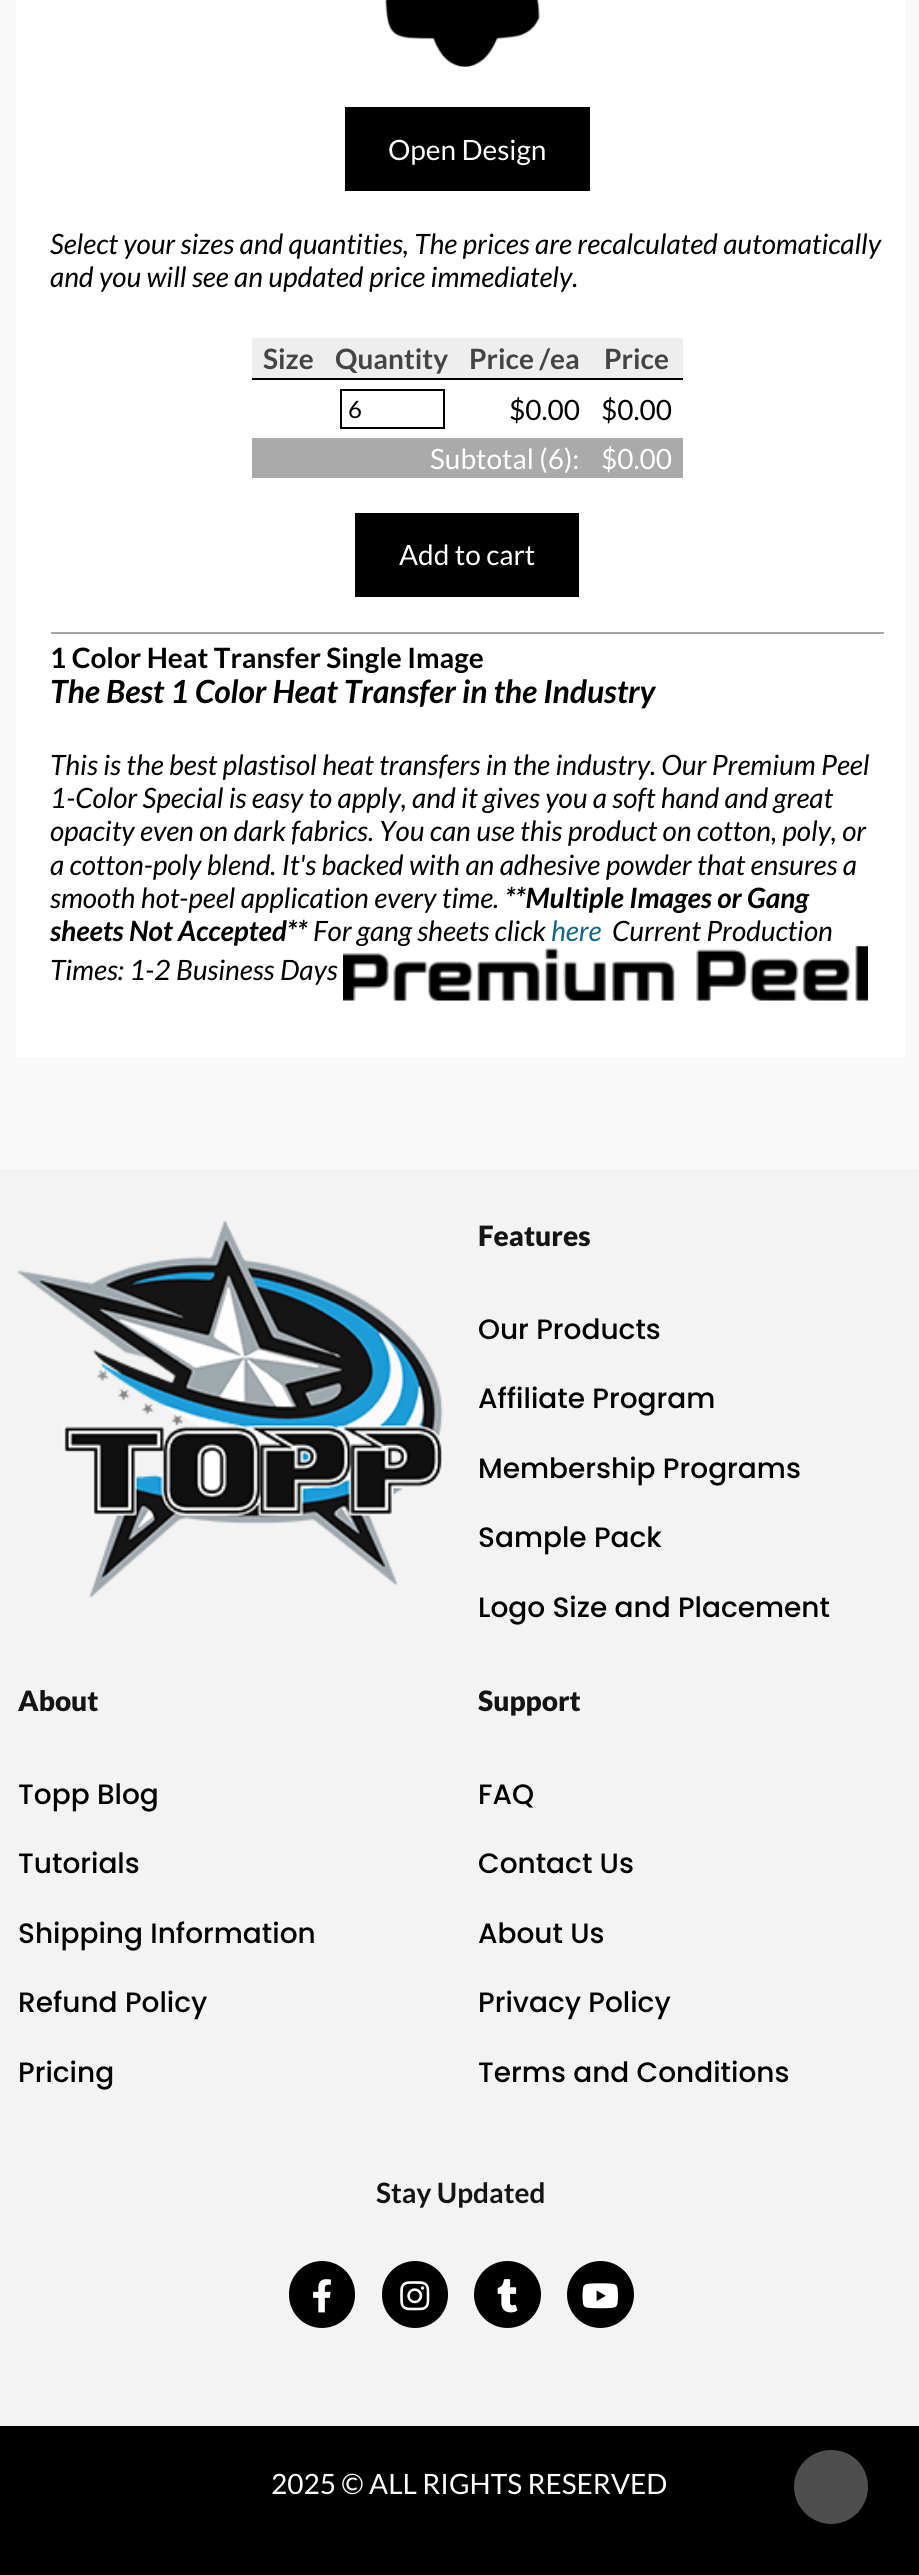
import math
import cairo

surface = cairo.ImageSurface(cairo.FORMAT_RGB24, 919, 2575)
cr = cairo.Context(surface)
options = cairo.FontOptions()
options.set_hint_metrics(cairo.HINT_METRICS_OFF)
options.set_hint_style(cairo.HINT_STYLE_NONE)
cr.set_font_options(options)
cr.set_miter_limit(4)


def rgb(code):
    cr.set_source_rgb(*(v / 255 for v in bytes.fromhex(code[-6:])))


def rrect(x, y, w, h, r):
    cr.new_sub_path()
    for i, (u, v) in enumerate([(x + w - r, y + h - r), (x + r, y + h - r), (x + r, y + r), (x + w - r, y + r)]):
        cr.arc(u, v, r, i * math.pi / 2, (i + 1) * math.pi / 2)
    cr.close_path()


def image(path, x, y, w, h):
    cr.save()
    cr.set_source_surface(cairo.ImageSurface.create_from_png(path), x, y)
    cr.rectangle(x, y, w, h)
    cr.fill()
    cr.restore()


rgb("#f9f9f9")
cr.paint()
rgb("#ffffff")
cr.rectangle(16, 0, 889, 1057)
cr.fill()
image("img/1.png", 385, 0, 155, 67)
for x, y, w, h, color in [
    (345, 107, 245, 84, "#000000"),
    (252, 338, 431, 40, "#eeeeee"),
    (252, 378, 431, 2, "#000000"),
]:
    rgb(color)
    cr.rectangle(x, y, w, h)
    cr.fill()
cr.rectangle(341, 390, 103, 38)
cr.stroke()
for x, y, w, h, color in [
    (252, 438, 431, 40, "#aaaaaa"),
    (355, 513, 224, 84, "#000000"),
    (51, 632, 833, 2, "#a6a6a6"),
    (0, 1169, 919, 1257, "#f3f3f3"),
]:
    rgb(color)
    cr.rectangle(x, y, w, h)
    cr.fill()
image("img/3.png", 17, 1221, 426, 377)
rgb("#000000")
rrect(289, 2261, 66, 67, 33)
cr.fill()
image("img/4.png", 313, 2279, 18, 34)
rrect(382, 2261, 66, 67, 33)
cr.fill()
image("img/5.png", 400, 2281, 30, 30)
cr.arc(507.5, 2294.5, 33.5, 0, 2 * math.pi)
cr.fill()
image("img/6.png", 497, 2279, 21, 34)
cr.arc(600.5, 2294.5, 33.5, 0, 2 * math.pi)
cr.fill()
image("img/7.png", 582, 2283, 36, 26)
cr.rectangle(0, 2426, 919, 149)
cr.fill()
rgb("#4e4e4e")
cr.new_path()
cr.move_to(831, 2524)
cr.curve_to(811, 2524, 794, 2507, 794, 2487)
cr.curve_to(794, 2466, 811, 2450, 831, 2450)
cr.curve_to(852, 2450, 868, 2466, 868, 2487)
cr.curve_to(868, 2507, 852, 2524, 831, 2524)
cr.close_path()
cr.fill()
cr.select_font_face("Lato")
cr.set_font_size(28)
rgb("#ffffff")
cr.move_to(388, 160)
cr.show_text("Open Design")
cr.select_font_face("Lato", cairo.FONT_SLANT_ITALIC)
rgb("#000000")
cr.move_to(50, 254)
cr.show_text("Select your sizes and quantities, The prices are recalculated automatically")
cr.move_to(50, 287)
cr.show_text("and you will see an updated price immediately.")
cr.select_font_face("Lato", cairo.FONT_SLANT_NORMAL, cairo.FONT_WEIGHT_BOLD)
rgb("#444444")
for x, y, s in [
    (263, 369, "Size"),
    (335, 369, "Quantity"),
    (469, 369, "Price /ea"),
    (604, 369, "Price"),
]:
    cr.move_to(x, y)
    cr.show_text(s)
cr.select_font_face("Lato")
cr.set_font_size(24)
rgb("#000000")
cr.move_to(348, 418)
cr.show_text("6")
cr.set_font_size(28)
cr.move_to(509, 420)
cr.show_text("$0.00")
cr.move_to(601, 420)
cr.show_text("$0.00")
rgb("#ffffff")
for x, y, s in [
    (430, 469, "Subtotal (6):"),
    (601, 469, "$0.00"),
    (399, 565, "Add to cart"),
]:
    cr.move_to(x, y)
    cr.show_text(s)
cr.select_font_face("Lato", cairo.FONT_SLANT_NORMAL, cairo.FONT_WEIGHT_BOLD)
rgb("#000000")
cr.move_to(50, 668)
cr.show_text("1 Color Heat Transfer Single Image")
cr.select_font_face("Lato", cairo.FONT_SLANT_ITALIC, cairo.FONT_WEIGHT_BOLD)
cr.set_font_size(31.9)
cr.move_to(50, 703)
cr.show_text("The Best 1 Color Heat Transfer in the Industry")
cr.select_font_face("Lato", cairo.FONT_SLANT_ITALIC)
cr.set_font_size(28)
for x, y, s in [
    (50, 775, "This is the best plastisol heat transfers in the industry. Our Premium Peel"),
    (50, 808, "1-Color Special is easy to apply, and it gives you a soft hand and great"),
    (50, 841, "opacity even on dark fabrics. You can use this product on cotton, poly, or"),
    (50, 875, "a cotton-poly blend. It's backed with an adhesive powder that ensures a"),
    (50, 908, "smooth hot-peel application every time."),
]:
    cr.move_to(x, y)
    cr.show_text(s)
cr.select_font_face("Lato", cairo.FONT_SLANT_ITALIC, cairo.FONT_WEIGHT_BOLD)
cr.move_to(505, 908)
cr.show_text("**Multiple Images or Gang")
cr.move_to(50, 941)
cr.show_text("sheets Not Accepted**")
cr.select_font_face("Lato", cairo.FONT_SLANT_ITALIC)
cr.move_to(313, 941)
cr.show_text("For gang sheets click")
rgb("#14648a")
cr.move_to(551, 941)
cr.show_text("here")
rgb("#000000")
cr.move_to(612, 941)
cr.show_text("Current Production")
cr.move_to(50, 980)
cr.show_text("Times: 1-2 Business Days")
image("img/2.png", 343, 946, 525, 55)
cr.select_font_face("Lato Black")
rgb("#151412")
cr.move_to(478, 1246)
cr.show_text("Features")
cr.select_font_face("Poppins Medium")
rgb("#000000")
for x, y, s in [
    (478, 1339, "Our Products"),
    (478, 1408, "Affiliate Program"),
    (478, 1478, "Membership Programs"),
    (478, 1547, "Sample Pack"),
    (478, 1617, "Logo Size and Placement"),
]:
    cr.move_to(x, y)
    cr.show_text(s)
cr.select_font_face("Lato Black")
rgb("#151412")
cr.move_to(18, 1711)
cr.show_text("About")
cr.select_font_face("Poppins Medium")
rgb("#000000")
for x, y, s in [
    (18, 1804, "Topp Blog"),
    (18, 1873, "Tutorials"),
    (18, 1943, "Shipping Information"),
    (18, 2012, "Refund Policy"),
    (18, 2082, "Pricing"),
]:
    cr.move_to(x, y)
    cr.show_text(s)
cr.select_font_face("Lato Black")
rgb("#151412")
cr.move_to(478, 1711)
cr.show_text("Support")
cr.select_font_face("Poppins Medium")
rgb("#000000")
for x, y, s in [
    (478, 1804, "FAQ"),
    (478, 1873, "Contact Us"),
    (478, 1943, "About Us"),
    (478, 2012, "Privacy Policy"),
    (478, 2082, "Terms and Conditions"),
]:
    cr.move_to(x, y)
    cr.show_text(s)
cr.select_font_face("Lato", cairo.FONT_SLANT_NORMAL, cairo.FONT_WEIGHT_BOLD)
rgb("#151412")
cr.move_to(376, 2203)
cr.show_text("Stay Updated")
cr.select_font_face("Lato")
rgb("#ffffff")
cr.move_to(271, 2494)
cr.show_text("2025 © ALL RIGHTS RESERVED")
surface.write_to_png("page.png")
